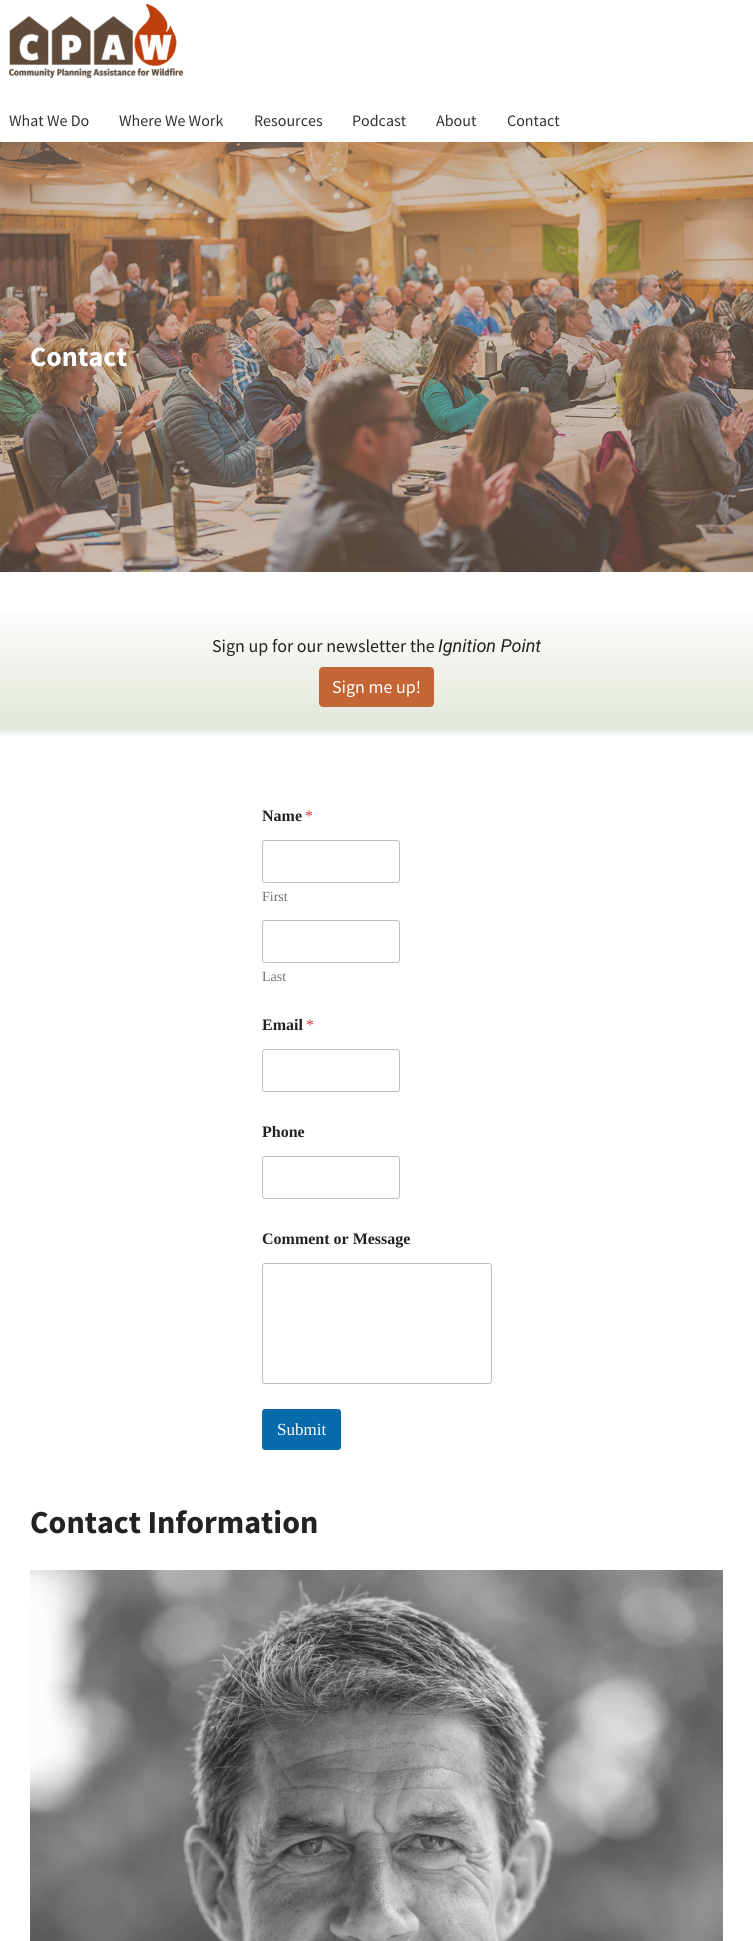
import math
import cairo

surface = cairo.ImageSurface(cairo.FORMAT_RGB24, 753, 1941)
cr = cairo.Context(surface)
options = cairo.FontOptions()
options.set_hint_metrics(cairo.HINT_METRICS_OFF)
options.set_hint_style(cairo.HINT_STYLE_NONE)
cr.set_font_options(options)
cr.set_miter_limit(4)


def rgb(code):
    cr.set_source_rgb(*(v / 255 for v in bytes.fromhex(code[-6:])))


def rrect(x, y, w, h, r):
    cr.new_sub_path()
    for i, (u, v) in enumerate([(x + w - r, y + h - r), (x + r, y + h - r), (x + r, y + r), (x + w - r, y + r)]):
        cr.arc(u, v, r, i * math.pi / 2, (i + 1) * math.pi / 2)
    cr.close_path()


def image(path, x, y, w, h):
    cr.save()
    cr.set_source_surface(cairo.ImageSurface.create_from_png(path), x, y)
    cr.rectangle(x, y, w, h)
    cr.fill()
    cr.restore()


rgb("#ffffff")
cr.paint()
image("img/1.png", 9, 3, 174, 75)
image("img/2.png", 0, 142, 753, 430)
gradient = cairo.LinearGradient(377, 737, 377, 602)
gradient.add_color_stop_rgba(0, 1, 1, 1, 1)
gradient.add_color_stop_rgba(0.06, 0.882, 0.906, 0.851, 1)
gradient.add_color_stop_rgba(1, 1, 1, 1, 1)
cr.set_source(gradient)
cr.rectangle(0, 610, 753, 126)
cr.fill()
rgb("#c36535")
rrect(320, 668, 113, 38, 3)
cr.fill_preserve()
cr.stroke()
rrect(262.5, 840.5, 137, 42, 2.5)
rgb("#bfbfbf")
cr.set_line_width(1)
cr.stroke()
rrect(262.5, 920.5, 137, 42, 2.5)
cr.stroke()
rrect(262.5, 1049.5, 137, 42, 2.5)
cr.stroke()
rrect(262.5, 1156.5, 137, 42, 2.5)
cr.stroke()
rrect(262.5, 1263.5, 229, 120, 2.5)
cr.stroke()
rgb("#066aab")
rrect(262, 1409, 79, 41, 3)
cr.fill()
image("img/3.png", 30, 1570, 693, 371)
cr.select_font_face("Source Sans Pro")
cr.set_font_size(16)
rgb("#333333")
for x, y, s in [
    (9, 126, "What We Do"),
    (119, 126, "Where We Work"),
    (254, 126, "Resources"),
    (352, 126, "Podcast"),
    (436, 126, "About"),
    (507, 126, "Contact"),
]:
    cr.move_to(x, y)
    cr.show_text(s)
cr.select_font_face("Source Sans Pro", cairo.FONT_SLANT_NORMAL, cairo.FONT_WEIGHT_BOLD)
cr.set_font_size(28)
rgb("#ffffff")
cr.move_to(30, 366)
cr.show_text("Contact")
cr.select_font_face("Source Sans Pro")
cr.set_font_size(18)
rgb("#222222")
cr.move_to(212, 652)
cr.show_text("Sign up for our newsletter the")
cr.select_font_face("Roboto", cairo.FONT_SLANT_ITALIC)
cr.move_to(438, 652)
cr.show_text("Ignition Point")
cr.select_font_face("Source Sans Pro")
rgb("#ffffff")
cr.move_to(332, 693)
cr.show_text("Sign me up!")
cr.select_font_face("Liberation Serif", cairo.FONT_SLANT_NORMAL, cairo.FONT_WEIGHT_BOLD)
cr.set_font_size(16)
rgb("#222222")
cr.move_to(262, 821)
cr.show_text("Name")
cr.select_font_face("Liberation Serif")
rgb("#d63637")
cr.move_to(305, 821)
cr.show_text("*")
cr.set_font_size(14)
rgb("#737373")
cr.move_to(262, 901)
cr.show_text("First")
cr.move_to(262, 981)
cr.show_text("Last")
cr.select_font_face("Liberation Serif", cairo.FONT_SLANT_NORMAL, cairo.FONT_WEIGHT_BOLD)
cr.set_font_size(16)
rgb("#222222")
cr.move_to(262, 1030)
cr.show_text("Email")
cr.select_font_face("Liberation Serif")
rgb("#d63637")
cr.move_to(306, 1030)
cr.show_text("*")
cr.select_font_face("Liberation Serif", cairo.FONT_SLANT_NORMAL, cairo.FONT_WEIGHT_BOLD)
rgb("#222222")
cr.move_to(262, 1137)
cr.show_text("Phone")
cr.move_to(262, 1244)
cr.show_text("Comment or Message")
cr.select_font_face("Liberation Serif")
cr.set_font_size(17)
rgb("#ffffff")
cr.move_to(277, 1435)
cr.show_text("Submit")
cr.select_font_face("Source Sans Pro", cairo.FONT_SLANT_NORMAL, cairo.FONT_WEIGHT_BOLD)
cr.set_font_size(32)
rgb("#222222")
cr.move_to(30, 1533)
cr.show_text("Contact Information")
surface.write_to_png("page.png")
